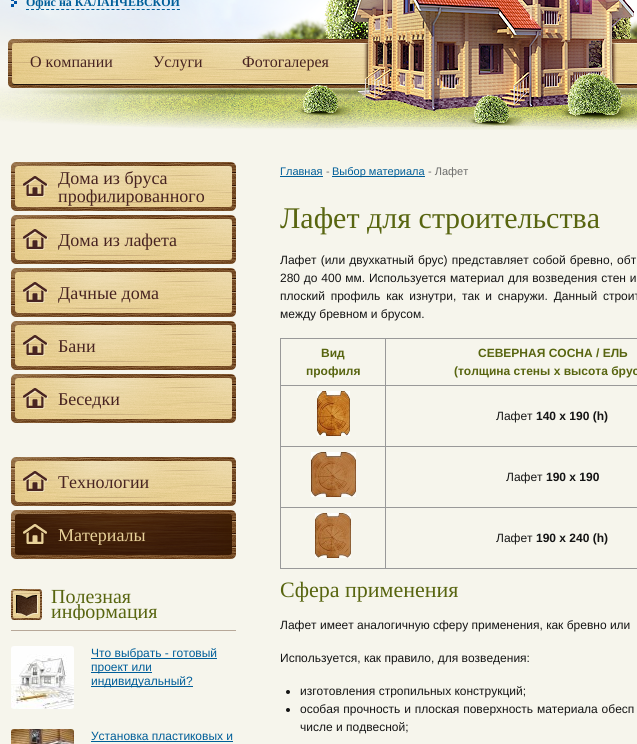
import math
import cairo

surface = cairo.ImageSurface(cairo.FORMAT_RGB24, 637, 744)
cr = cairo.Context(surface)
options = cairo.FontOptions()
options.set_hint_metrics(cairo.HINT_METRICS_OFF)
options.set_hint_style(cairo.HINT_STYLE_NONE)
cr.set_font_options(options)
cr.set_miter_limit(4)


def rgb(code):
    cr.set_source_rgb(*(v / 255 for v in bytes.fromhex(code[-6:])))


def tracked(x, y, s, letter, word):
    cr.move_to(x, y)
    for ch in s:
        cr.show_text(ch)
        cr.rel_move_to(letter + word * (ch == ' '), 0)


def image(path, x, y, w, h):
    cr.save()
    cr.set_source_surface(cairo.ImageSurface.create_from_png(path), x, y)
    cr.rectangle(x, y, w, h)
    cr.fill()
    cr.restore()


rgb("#f6f5ec")
cr.paint()
image("img/1.png", 0, 0, 637, 130)
image("img/2.png", 8, 0, 629, 127)
image("img/3.png", 11, 0, 6, 7)
cr.new_path()
cr.move_to(26, 9.5)
cr.line_to(180, 9.5)
rgb("#005e99")
cr.set_line_width(1)
cr.set_dash([3, 2.03])
cr.stroke()
image("img/4.png", 11, 162, 225, 49)
image("img/4.png", 11, 215, 225, 49)
image("img/4.png", 11, 268, 225, 49)
image("img/4.png", 11, 321, 225, 49)
image("img/4.png", 11, 374, 225, 49)
image("img/4.png", 11, 457, 225, 49)
image("img/5.png", 11, 510, 225, 49)
image("img/6.png", 11, 589, 31, 31)
rgb("#b7a899")
cr.rectangle(11, 630, 225, 1)
cr.fill()
image("img/7.png", 11, 646, 63, 63)
for x, y, w, h, color in [
    (91, 658, 126, 1, "#005e99"),
    (91, 672, 61, 1, "#005e99"),
    (91, 686, 102, 1, "#005e99"),
]:
    rgb(color)
    cr.rectangle(x, y, w, h)
    cr.fill()
image("img/8.png", 11, 729, 63, 15)
for x, y, w, h, color in [
    (91, 741, 142, 1, "#005e99"),
    (280, 176, 43, 1, "#005e99"),
    (332, 176, 93, 1, "#005e99"),
    (280, 338, 357, 1, "#999999"),
    (280, 568, 357, 1, "#999999"),
    (280, 338, 1, 231, "#999999"),
    (385, 385, 252, 1, "#999999"),
    (385, 446, 252, 1, "#999999"),
    (385, 507, 252, 1, "#999999"),
    (385, 507, 1, 62, "#999999"),
    (280, 507, 106, 1, "#999999"),
    (385, 446, 1, 62, "#999999"),
    (280, 446, 106, 1, "#999999"),
    (385, 385, 1, 62, "#999999"),
    (280, 385, 106, 1, "#999999"),
    (385, 338, 1, 48, "#999999"),
]:
    rgb(color)
    cr.rectangle(x, y, w, h)
    cr.fill()
image("img/9.png", 317, 391, 33, 45)
image("img/10.png", 311, 452, 45, 45)
image("img/11.png", 315, 513, 36, 45)
rgb("#141414")
cr.arc(288, 692, 2, 0, 2 * math.pi)
cr.fill()
cr.arc(288, 710, 2, 0, 2 * math.pi)
cr.fill()
cr.select_font_face("Liberation Serif", cairo.FONT_SLANT_NORMAL, cairo.FONT_WEIGHT_BOLD)
cr.set_font_size(12)
rgb("#005e99")
cr.move_to(26, 6)
cr.show_text("Офис на КАЛАНЧЕВСКОЙ")
cr.select_font_face("Liberation Serif")
cr.set_font_size(16)
rgb("#482421")
for x, y, s in [
    (30, 67, "О компании"),
    (153, 67, "Услуги"),
    (242, 67, "Фотогалерея"),
]:
    cr.move_to(x, y)
    cr.show_text(s)
cr.set_font_size(18)
for x, y, s in [
    (58, 184, "Дома из бруса"),
    (58, 202, "профилированного"),
    (58, 246, "Дома из лафета"),
    (58, 299, "Дачные дома"),
    (58, 352, "Бани"),
    (58, 405, "Беседки"),
    (58, 488, "Технологии"),
]:
    cr.move_to(x, y)
    cr.show_text(s)
rgb("#e8d199")
cr.move_to(58, 541)
cr.show_text("Материалы")
cr.set_font_size(20)
rgb("#586510")
cr.move_to(51, 603)
cr.show_text("Полезная")
cr.save()
cr.rectangle(11, 589, 225, 31)
cr.clip()
cr.move_to(51, 618)
cr.show_text("информация")
cr.restore()
cr.select_font_face("Liberation Sans")
cr.set_font_size(12)
rgb("#005e99")
for x, y, s in [
    (91, 657, "Что выбрать - готовый"),
    (91, 671, "проект или"),
    (91, 685, "индивидуальный?"),
    (91, 740, "Установка пластиковых и"),
]:
    cr.move_to(x, y)
    cr.show_text(s)
cr.set_font_size(11)
cr.move_to(280, 175)
cr.show_text("Главная")
rgb("#6c6c6b")
cr.move_to(326, 175)
cr.show_text("-")
rgb("#005e99")
cr.move_to(332, 175)
cr.show_text("Выбор материала")
rgb("#6c6c6b")
cr.move_to(428, 175)
cr.show_text("- Лафет")
cr.select_font_face("Liberation Serif")
cr.set_font_size(30)
rgb("#586510")
cr.move_to(280, 228)
cr.show_text("Лафет для строительства")
cr.select_font_face("Liberation Sans")
cr.set_font_size(12)
rgb("#141414")
tracked(280, 264, "Лафет (или двухкатный брус) представляет собой бревно, обт", 0, 0.75)
tracked(280, 282, "280 до 400 мм. Используется материал для возведения стен и", 0, 0.5)
tracked(280, 300, "плоский профиль как изнутри, так и снаружи. Данный строит", 0, 2.5)
cr.move_to(280, 318)
cr.show_text("между бревном и брусом.")
cr.select_font_face("Liberation Sans", cairo.FONT_SLANT_NORMAL, cairo.FONT_WEIGHT_BOLD)
rgb("#586510")
for x, y, s in [
    (321, 357, "Вид"),
    (306, 375, "профиля"),
    (478, 357, "СЕВЕРНАЯ СОСНА / ЕЛЬ"),
    (454, 375, "(толщина стены х высота брус"),
]:
    cr.move_to(x, y)
    cr.show_text(s)
cr.select_font_face("Liberation Sans")
rgb("#141414")
cr.move_to(496, 420)
cr.show_text("Лафет")
cr.select_font_face("Liberation Sans", cairo.FONT_SLANT_NORMAL, cairo.FONT_WEIGHT_BOLD)
cr.move_to(536, 420)
cr.show_text("140 х 190 (h)")
cr.select_font_face("Liberation Sans")
cr.move_to(506, 481)
cr.show_text("Лафет")
cr.select_font_face("Liberation Sans", cairo.FONT_SLANT_NORMAL, cairo.FONT_WEIGHT_BOLD)
cr.move_to(546, 481)
cr.show_text("190 х 190")
cr.select_font_face("Liberation Sans")
cr.move_to(496, 542)
cr.show_text("Лафет")
cr.select_font_face("Liberation Sans", cairo.FONT_SLANT_NORMAL, cairo.FONT_WEIGHT_BOLD)
cr.move_to(536, 542)
cr.show_text("190 х 240 (h)")
cr.select_font_face("Liberation Serif")
cr.set_font_size(22)
rgb("#586510")
cr.move_to(280, 597)
cr.show_text("Сфера применения")
cr.select_font_face("Liberation Sans")
cr.set_font_size(12)
rgb("#141414")
for x, y, s in [
    (280, 629, "Лафет имеет аналогичную сферу применения, как бревно или"),
    (280, 662, "Используется, как правило, для возведения:"),
    (300, 695, "изготовления стропильных конструкций;"),
]:
    cr.move_to(x, y)
    cr.show_text(s)
tracked(300, 713, "особая прочность и плоская поверхность материала обесп", 0, 0.5)
cr.move_to(300, 731)
cr.show_text("числе и подвесной;")
surface.write_to_png("page.png")
